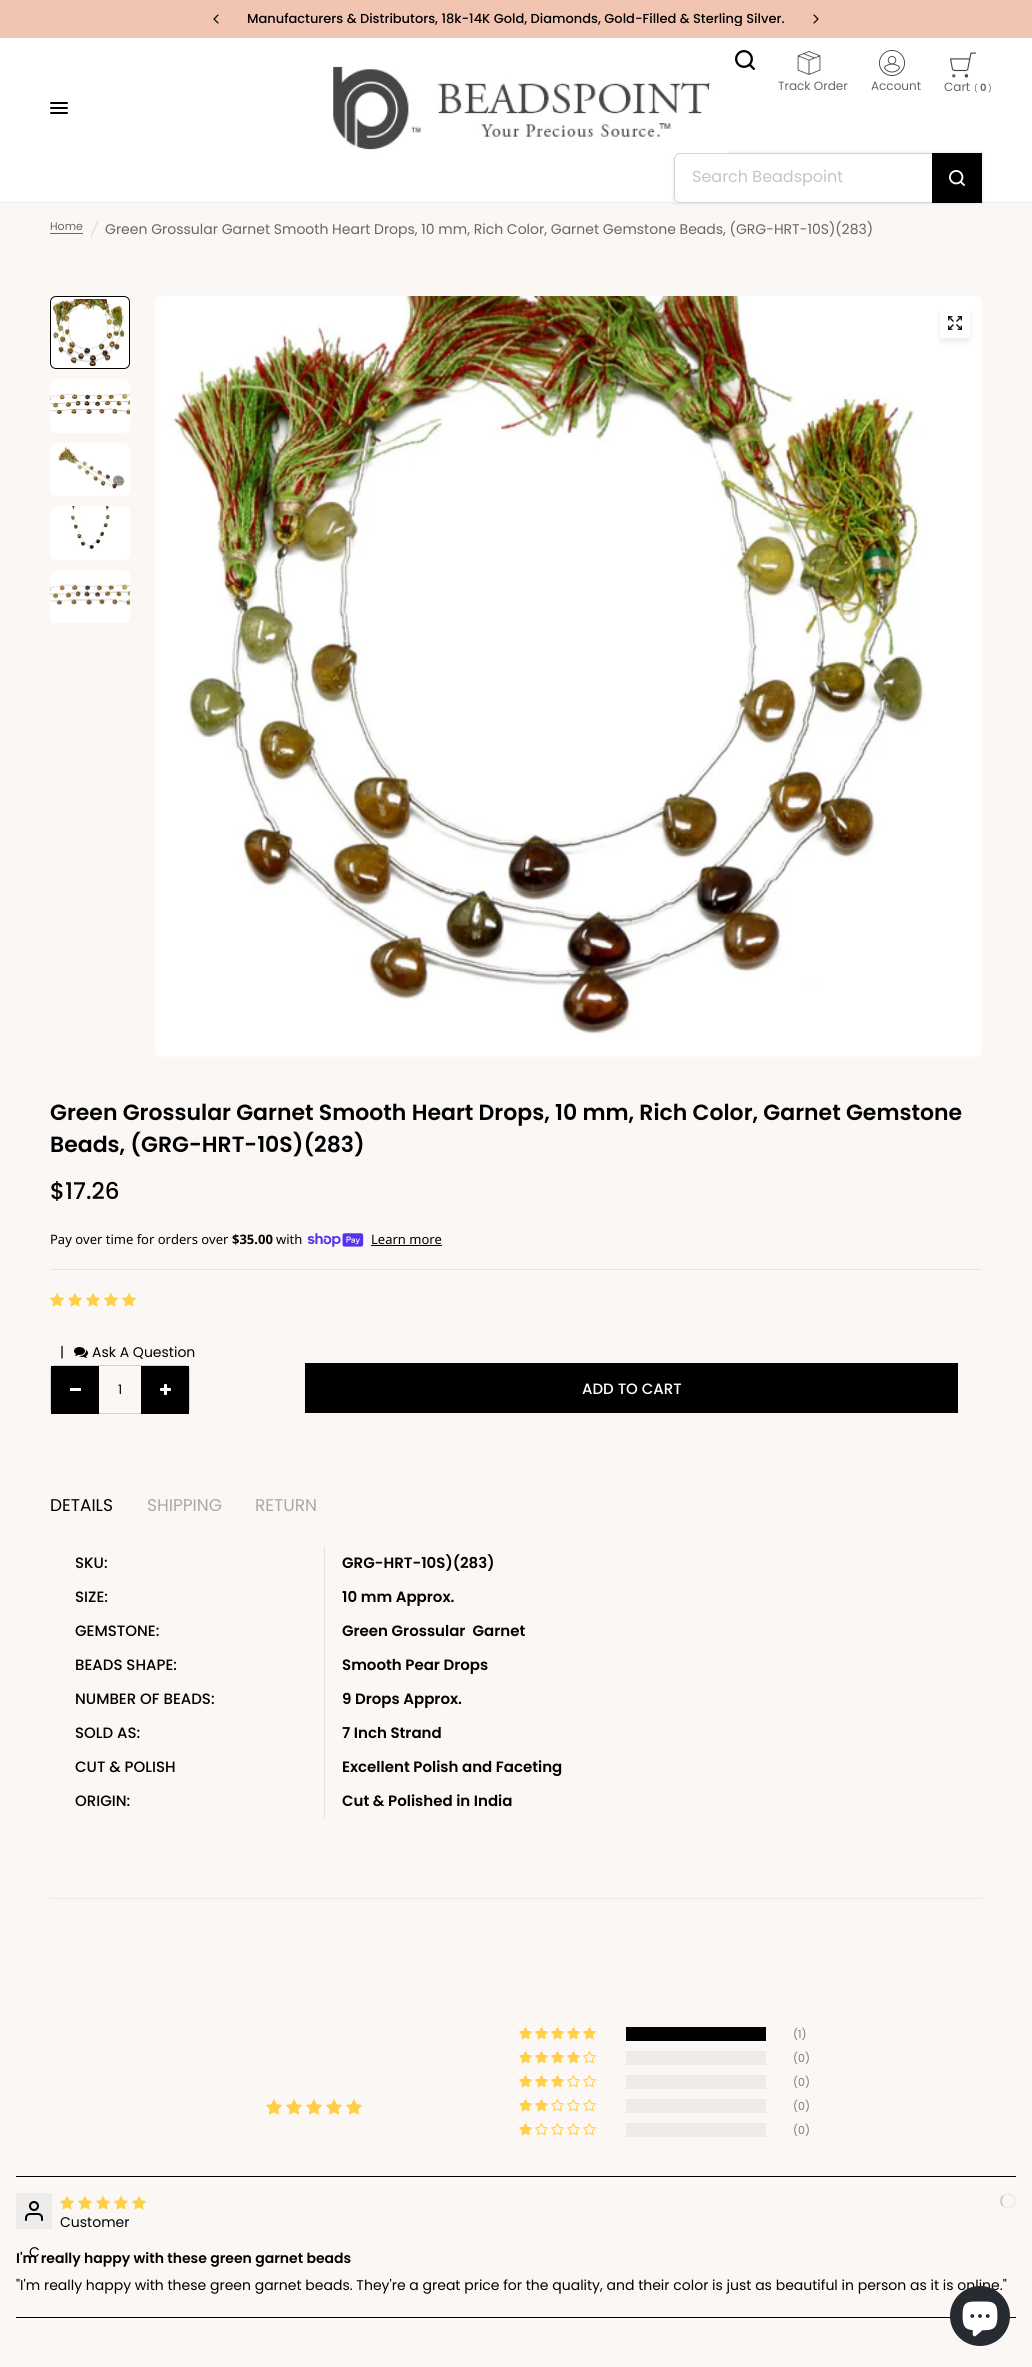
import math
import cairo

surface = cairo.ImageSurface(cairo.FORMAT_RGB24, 1032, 2367)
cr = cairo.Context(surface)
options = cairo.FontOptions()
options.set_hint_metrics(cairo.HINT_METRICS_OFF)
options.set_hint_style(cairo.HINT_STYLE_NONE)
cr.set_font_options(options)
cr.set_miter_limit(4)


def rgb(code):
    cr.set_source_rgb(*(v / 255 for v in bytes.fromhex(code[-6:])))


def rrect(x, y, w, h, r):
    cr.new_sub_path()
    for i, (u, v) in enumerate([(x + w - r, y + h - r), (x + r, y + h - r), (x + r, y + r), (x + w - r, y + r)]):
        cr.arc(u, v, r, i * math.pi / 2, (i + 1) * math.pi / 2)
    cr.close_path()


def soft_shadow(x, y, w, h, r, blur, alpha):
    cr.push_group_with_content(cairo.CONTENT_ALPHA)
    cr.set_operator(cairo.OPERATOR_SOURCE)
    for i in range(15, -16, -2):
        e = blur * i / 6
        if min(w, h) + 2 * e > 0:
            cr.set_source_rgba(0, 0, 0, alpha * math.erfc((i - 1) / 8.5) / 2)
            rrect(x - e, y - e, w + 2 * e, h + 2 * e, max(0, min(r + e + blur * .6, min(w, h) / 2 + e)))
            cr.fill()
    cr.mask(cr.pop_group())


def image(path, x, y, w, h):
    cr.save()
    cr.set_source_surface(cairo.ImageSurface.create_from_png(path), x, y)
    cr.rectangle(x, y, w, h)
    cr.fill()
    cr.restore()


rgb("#ffffff")
cr.paint()
rgb("#f1c5b2")
cr.rectangle(0, 0, 1032, 38)
cr.fill()
cr.new_path()
cr.move_to(218, 15)
cr.line_to(214, 19)
cr.line_to(218, 23)
rgb("#000000")
cr.set_line_width(1.2)
cr.set_line_cap(cairo.LINE_CAP_ROUND)
cr.set_line_join(cairo.LINE_JOIN_ROUND)
cr.stroke()
cr.new_path()
cr.move_to(814, 15)
cr.line_to(818, 19)
cr.line_to(814, 23)
cr.stroke()
rgb("#faf7f5")
cr.rectangle(0, 203, 1032, 2164)
cr.fill()
cr.save()
cr.set_fill_rule(cairo.FILL_RULE_EVEN_ODD)
cr.new_path()
cr.move_to(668, 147)
cr.line_to(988, 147)
cr.line_to(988, 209)
cr.line_to(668, 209)
cr.close_path()
cr.move_to(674, 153)
cr.line_to(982, 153)
cr.line_to(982, 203)
cr.line_to(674, 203)
cr.close_path()
cr.clip()
rgb("#000000")
soft_shadow(674, 153, 308, 50, 0, 1.5, 0.15)
cr.restore()
image("img/1.png", 333, 66, 395, 92)
image("img/2.png", 735, 50, 20, 20)
image("img/3.png", 797, 51, 24, 24)
image("img/4.png", 879, 50, 26, 26)
image("img/5.png", 950, 52, 26, 26)
rgb("#000000")
rrect(50, 102, 18, 2, 1)
cr.fill()
rrect(50, 107, 18, 2, 1)
cr.fill()
rrect(50, 112, 18, 2, 1)
cr.fill()
rgb("#edeae6")
cr.rectangle(0, 202, 1032, 1)
cr.fill()
rrect(674.5, 153.5, 307, 49, 5.5)
rgb("#d3d3d3")
cr.set_line_width(1)
cr.set_line_cap(cairo.LINE_CAP_BUTT)
cr.set_line_join(cairo.LINE_JOIN_MITER)
cr.stroke()
rgb("#000000")
cr.rectangle(932, 153, 50, 50)
cr.fill()
image("img/6.png", 949, 170, 16, 16)
rgb("#666666")
cr.rectangle(50, 233, 33, 1)
cr.fill()
image("img/7.png", 50, 296, 80, 73)
rrect(51.5, 297.5, 77, 70, 4.5)
rgb("#ffffff")
cr.set_line_width(3)
cr.stroke()
rrect(50.5, 296.5, 79, 72, 5.5)
rgb("#000000")
cr.set_line_width(1)
cr.stroke()
image("img/8.png", 50, 379, 80, 54)
image("img/9.png", 50, 443, 80, 53)
image("img/10.png", 50, 506, 80, 54)
image("img/11.png", 50, 570, 80, 53)
image("img/12.png", 155, 296, 827, 761)
rgb("#000000")
soft_shadow(940, 312, 30, 30, 3, 3, 0.08)
rgb("#ffffff")
rrect(940, 308, 30, 30, 3)
cr.fill()
image("img/13.png", 948, 316, 14, 14)
rgb("#e5e5e5")
cr.rectangle(50, 1269, 932, 1)
cr.fill()
image("img/14.png", 307, 1233, 57, 14)
rgb("#000000")
cr.rectangle(371, 1245, 71, 1)
cr.fill()
image("img/15.png", 50, 1293, 14, 14)
image("img/15.png", 68, 1293, 14, 14)
image("img/15.png", 86, 1293, 14, 14)
image("img/15.png", 104, 1293, 14, 14)
image("img/15.png", 122, 1293, 14, 14)
image("img/16.png", 74, 1347, 14, 11)
rrect(50.5, 1365.5, 139, 48, 5.5)
rgb("#d3d3d3")
cr.stroke()
for x, y, w, h, color in [
    (51, 1366, 48, 48, "#000000"),
    (70, 1388, 11, 3, "#ffffff"),
    (141, 1366, 48, 48, "#000000"),
]:
    rgb(color)
    cr.rectangle(x, y, w, h)
    cr.fill()
image("img/17.png", 160, 1384, 11, 11)
for x, y, w, h, color in [
    (305, 1363, 653, 50, "#000000"),
    (324, 1546, 1, 273, "#e3e3e3"),
    (50, 1898, 932, 1, "#edeae6"),
]:
    rgb(color)
    cr.rectangle(x, y, w, h)
    cr.fill()
image("img/18.png", 266, 2099, 16, 16)
image("img/18.png", 286, 2099, 16, 16)
image("img/18.png", 306, 2099, 16, 16)
image("img/18.png", 326, 2099, 16, 16)
image("img/18.png", 346, 2099, 16, 16)
image("img/19.png", 519, 2027, 13, 13)
image("img/19.png", 535, 2027, 13, 13)
image("img/19.png", 551, 2027, 13, 13)
image("img/19.png", 567, 2027, 13, 13)
image("img/19.png", 583, 2027, 13, 13)
rgb("#000000")
cr.rectangle(626, 2027, 140, 14)
cr.fill()
image("img/19.png", 519, 2051, 13, 13)
image("img/19.png", 535, 2051, 13, 13)
image("img/19.png", 551, 2051, 13, 13)
image("img/19.png", 567, 2051, 13, 13)
image("img/20.png", 583, 2051, 13, 13)
rgb("#edeceb")
cr.rectangle(626, 2051, 140, 14)
cr.fill()
image("img/19.png", 519, 2075, 13, 13)
image("img/19.png", 535, 2075, 13, 13)
image("img/19.png", 551, 2075, 13, 13)
image("img/20.png", 567, 2075, 13, 13)
image("img/20.png", 583, 2075, 13, 13)
cr.rectangle(626, 2075, 140, 14)
cr.fill()
image("img/19.png", 519, 2099, 13, 13)
image("img/19.png", 535, 2099, 13, 13)
image("img/20.png", 551, 2099, 13, 13)
image("img/20.png", 567, 2099, 13, 13)
image("img/20.png", 583, 2099, 13, 13)
cr.rectangle(626, 2099, 140, 14)
cr.fill()
image("img/19.png", 519, 2123, 13, 13)
image("img/20.png", 535, 2123, 13, 13)
image("img/20.png", 551, 2123, 13, 13)
image("img/20.png", 567, 2123, 13, 13)
image("img/20.png", 583, 2123, 13, 13)
cr.rectangle(626, 2123, 140, 14)
cr.fill()
rgb("#000000")
cr.rectangle(16, 2176, 1000, 1)
cr.fill()
image("img/15.png", 60, 2196, 14, 14)
image("img/15.png", 78, 2196, 14, 14)
image("img/15.png", 96, 2196, 14, 14)
image("img/15.png", 114, 2196, 14, 14)
image("img/15.png", 132, 2196, 14, 14)
cr.new_path()
cr.move_to(1003, 2196)
cr.curve_to(1004.5, 2194.5, 1007, 2193.5, 1009.5, 2194)
cr.curve_to(1017.5, 2196, 1016.5, 2208, 1008, 2208)
cr.curve_to(1006, 2208, 1004.5, 2207.5, 1003, 2206)
rgb("#eeeeee")
cr.set_line_width(2)
cr.stroke()
cr.new_path()
cr.move_to(1003, 2206)
cr.curve_to(1000.5, 2203.5, 1000.5, 2198.5, 1003, 2196)
rgb("#cccccc")
cr.stroke()
rgb("#edeceb")
cr.rectangle(16, 2193, 36, 36)
cr.fill()
image("img/21.png", 25, 2201, 18, 20)
rgb("#000000")
cr.rectangle(16, 2317, 1000, 1)
cr.fill()
cr.save()
cr.rectangle(216, 12, 600, 14)
cr.clip()
cr.select_font_face("Poppins Medium")
cr.set_font_size(13)
cr.move_to(247, 23)
cr.show_text("Manufacturers & Distributors, 18k-14K Gold, Diamonds, Gold-Filled & Sterling Silver.")
cr.restore()
cr.select_font_face("Poppins")
cr.set_font_size(12)
rgb("#666666")
for x, y, s in [
    (778, 90, "Track Order"),
    (871, 90, "Account"),
    (944, 91, "Cart"),
]:
    cr.move_to(x, y)
    cr.show_text(s)
cr.set_font_size(8)
cr.move_to(974, 91)
cr.show_text("(")
cr.select_font_face("Poppins SemiBold")
cr.set_font_size(10)
cr.move_to(980, 91)
cr.show_text("0")
cr.select_font_face("Poppins")
cr.set_font_size(8)
cr.move_to(988, 91)
cr.show_text(")")
cr.set_font_size(16)
rgb("#c6c5c5")
cr.move_to(692, 182)
cr.show_text("Search Beadspoint")
cr.set_font_size(11)
rgb("#666666")
cr.move_to(50, 230)
cr.show_text("Home")
cr.select_font_face("Poppins", cairo.FONT_SLANT_ITALIC)
cr.set_font_size(14)
rgb("#dcdad8")
cr.move_to(91, 234)
cr.show_text("/")
cr.select_font_face("Poppins")
rgb("#666666")
cr.move_to(105, 234)
cr.show_text("Green Grossular Garnet Smooth Heart Drops, 10 mm, Rich Color, Garnet Gemstone Beads, (GRG-HRT-10S)(283)")
cr.select_font_face("Poppins SemiBold")
cr.set_font_size(22)
rgb("#000000")
cr.move_to(50, 1120)
cr.show_text("Green Grossular Garnet Smooth Heart Drops, 10 mm, Rich Color, Garnet Gemstone")
cr.move_to(50, 1152)
cr.show_text("Beads, (GRG-HRT-10S)(283)")
cr.select_font_face("Poppins Medium")
cr.set_font_size(23)
cr.move_to(50, 1199)
cr.show_text("$17.26")
cr.select_font_face("Noto Sans")
cr.set_font_size(13)
cr.move_to(50, 1244)
cr.show_text("Pay over time for orders over")
cr.select_font_face("Noto Sans", cairo.FONT_SLANT_NORMAL, cairo.FONT_WEIGHT_BOLD)
cr.move_to(232, 1244)
cr.show_text("$35.00")
cr.select_font_face("Noto Sans")
cr.move_to(276, 1244)
cr.show_text("with")
cr.move_to(371, 1244)
cr.show_text("Learn more")
cr.select_font_face("Poppins")
cr.set_font_size(14)
cr.move_to(60, 1357)
cr.show_text("|")
cr.move_to(92, 1357)
cr.show_text("Ask A Question")
cr.set_font_size(13)
cr.move_to(118, 1394)
cr.show_text("1")
cr.select_font_face("Poppins Medium")
cr.set_font_size(15)
rgb("#ffffff")
cr.move_to(582, 1394)
cr.show_text("ADD TO CART")
cr.select_font_face("Poppins")
cr.set_font_size(17)
rgb("#000000")
cr.move_to(50, 1511)
cr.show_text("DETAILS")
rgb("#a9a9a9")
cr.move_to(147, 1511)
cr.show_text("SHIPPING")
cr.move_to(255, 1511)
cr.show_text("RETURN")
cr.select_font_face("Poppins Medium")
cr.set_font_size(15)
rgb("#000000")
cr.move_to(75, 1568)
cr.show_text("SKU:")
cr.select_font_face("Poppins SemiBold")
cr.move_to(342, 1568)
cr.show_text("GRG-HRT-10S)(283)")
cr.select_font_face("Poppins Medium")
cr.move_to(75, 1602)
cr.show_text("SIZE:")
cr.select_font_face("Poppins SemiBold")
cr.move_to(342, 1602)
cr.show_text("10 mm Approx.")
cr.select_font_face("Poppins Medium")
cr.move_to(75, 1636)
cr.show_text("GEMSTONE:")
cr.select_font_face("Poppins SemiBold")
cr.move_to(342, 1636)
cr.show_text("Green Grossular  Garnet")
cr.select_font_face("Poppins Medium")
cr.move_to(75, 1670)
cr.show_text("BEADS SHAPE:")
cr.select_font_face("Poppins SemiBold")
cr.move_to(342, 1670)
cr.show_text("Smooth Pear Drops")
cr.select_font_face("Poppins Medium")
cr.move_to(75, 1704)
cr.show_text("NUMBER OF BEADS:")
cr.select_font_face("Poppins SemiBold")
cr.move_to(342, 1704)
cr.show_text("9 Drops Approx.")
cr.select_font_face("Poppins Medium")
cr.move_to(75, 1738)
cr.show_text("SOLD AS:")
cr.select_font_face("Poppins SemiBold")
cr.move_to(342, 1738)
cr.show_text("7 Inch Strand")
cr.select_font_face("Poppins Medium")
cr.move_to(75, 1772)
cr.show_text("CUT & POLISH")
cr.select_font_face("Poppins SemiBold")
cr.move_to(342, 1772)
cr.show_text("Excellent Polish and Faceting")
cr.select_font_face("Poppins Medium")
cr.move_to(75, 1806)
cr.show_text("ORIGIN:")
cr.select_font_face("Poppins SemiBold")
cr.move_to(342, 1806)
cr.show_text("Cut & Polished in India")
cr.select_font_face("Poppins")
cr.set_font_size(11)
rgb("#7b7b7b")
for x, y, s in [
    (793, 2038, "(1)"),
    (793, 2062, "(0)"),
    (793, 2086, "(0)"),
    (793, 2110, "(0)"),
    (793, 2134, "(0)"),
]:
    cr.move_to(x, y)
    cr.show_text(s)
cr.set_font_size(14)
rgb("#000000")
cr.move_to(60, 2227)
cr.show_text("Customer")
cr.select_font_face("Poppins SemiBold")
cr.move_to(16, 2263)
cr.show_text("I'm really happy with these green garnet beads")
cr.select_font_face("Poppins")
cr.move_to(29, 2257)
cr.show_text("C")
cr.move_to(16, 2290)
cr.show_text("\"I'm really happy with these green garnet beads. They're a great price for the quality, and their color is just as beautiful in person as it is online.\"")
rgb("#252b31")
cr.new_path()
cr.arc(980, 2316, 30, 0, 2 * math.pi)
cr.fill()
image("img/22.png", 962, 2301, 36, 36)
surface.write_to_png("page.png")
